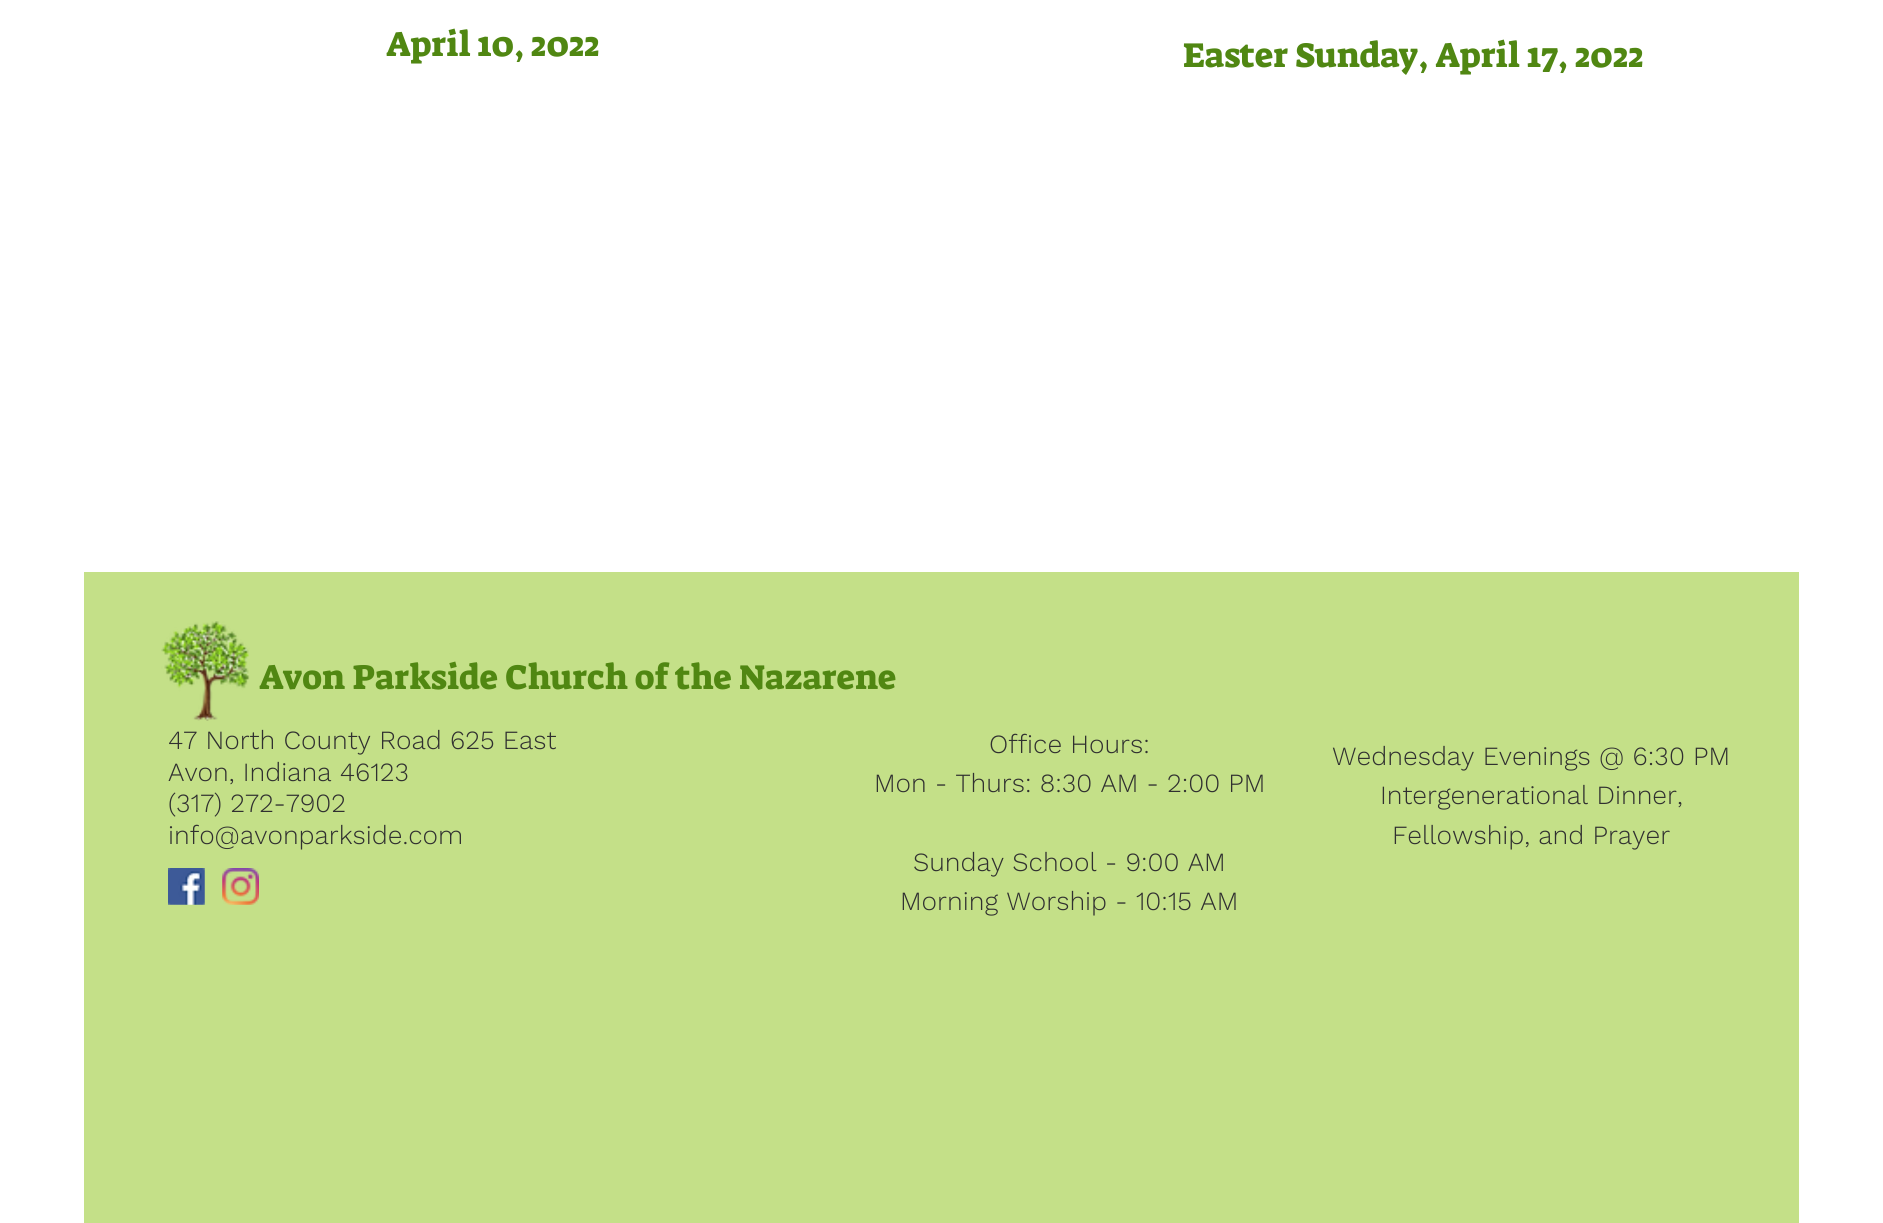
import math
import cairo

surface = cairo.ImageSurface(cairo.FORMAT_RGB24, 1883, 1223)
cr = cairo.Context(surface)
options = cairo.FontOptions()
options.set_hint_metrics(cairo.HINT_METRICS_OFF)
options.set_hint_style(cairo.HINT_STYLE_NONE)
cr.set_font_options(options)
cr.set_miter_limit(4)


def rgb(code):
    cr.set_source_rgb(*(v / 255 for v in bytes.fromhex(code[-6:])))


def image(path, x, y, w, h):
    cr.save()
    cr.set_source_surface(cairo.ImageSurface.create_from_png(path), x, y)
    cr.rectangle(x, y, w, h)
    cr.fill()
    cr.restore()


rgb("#ffffff")
cr.paint()
rgb("#c4e088")
cr.rectangle(84, 572, 1715, 651)
cr.fill()
image("img/1.png", 161, 621, 89, 100)
image("img/2.png", 168, 868, 37, 37)
image("img/3.png", 222, 868, 37, 37)
cr.select_font_face("Suez One")
cr.set_font_size(35)
rgb("#508712")
for x, y, s in [
    (386, 56, "April 10, 2022"),
    (1183, 67, "Easter Sunday, April 17, 2022"),
    (259, 689, "Avon Parkside Church of the Nazarene"),
]:
    cr.move_to(x, y)
    cr.show_text(s)
cr.select_font_face("Work Sans Light")
cr.set_font_size(26.25)
rgb("#303030")
for x, y, s in [
    (168, 749, "47 North County Road 625 East"),
    (168, 781, "Avon, Indiana 46123"),
    (168, 812, "(317) 272-7902"),
    (168, 844, "info@avonparkside.com"),
    (989, 753, "Office Hours:"),
    (874, 792, "Mon - Thurs: 8:30 AM - 2:00 PM"),
    (913, 871, "Sunday School - 9:00 AM"),
    (900, 910, "Morning Worship - 10:15 AM"),
    (1332, 765, "Wednesday Evenings @ 6:30 PM"),
    (1380, 804, "Intergenerational Dinner,"),
    (1392, 844, "Fellowship, and Prayer"),
]:
    cr.move_to(x, y)
    cr.show_text(s)
surface.write_to_png("page.png")
